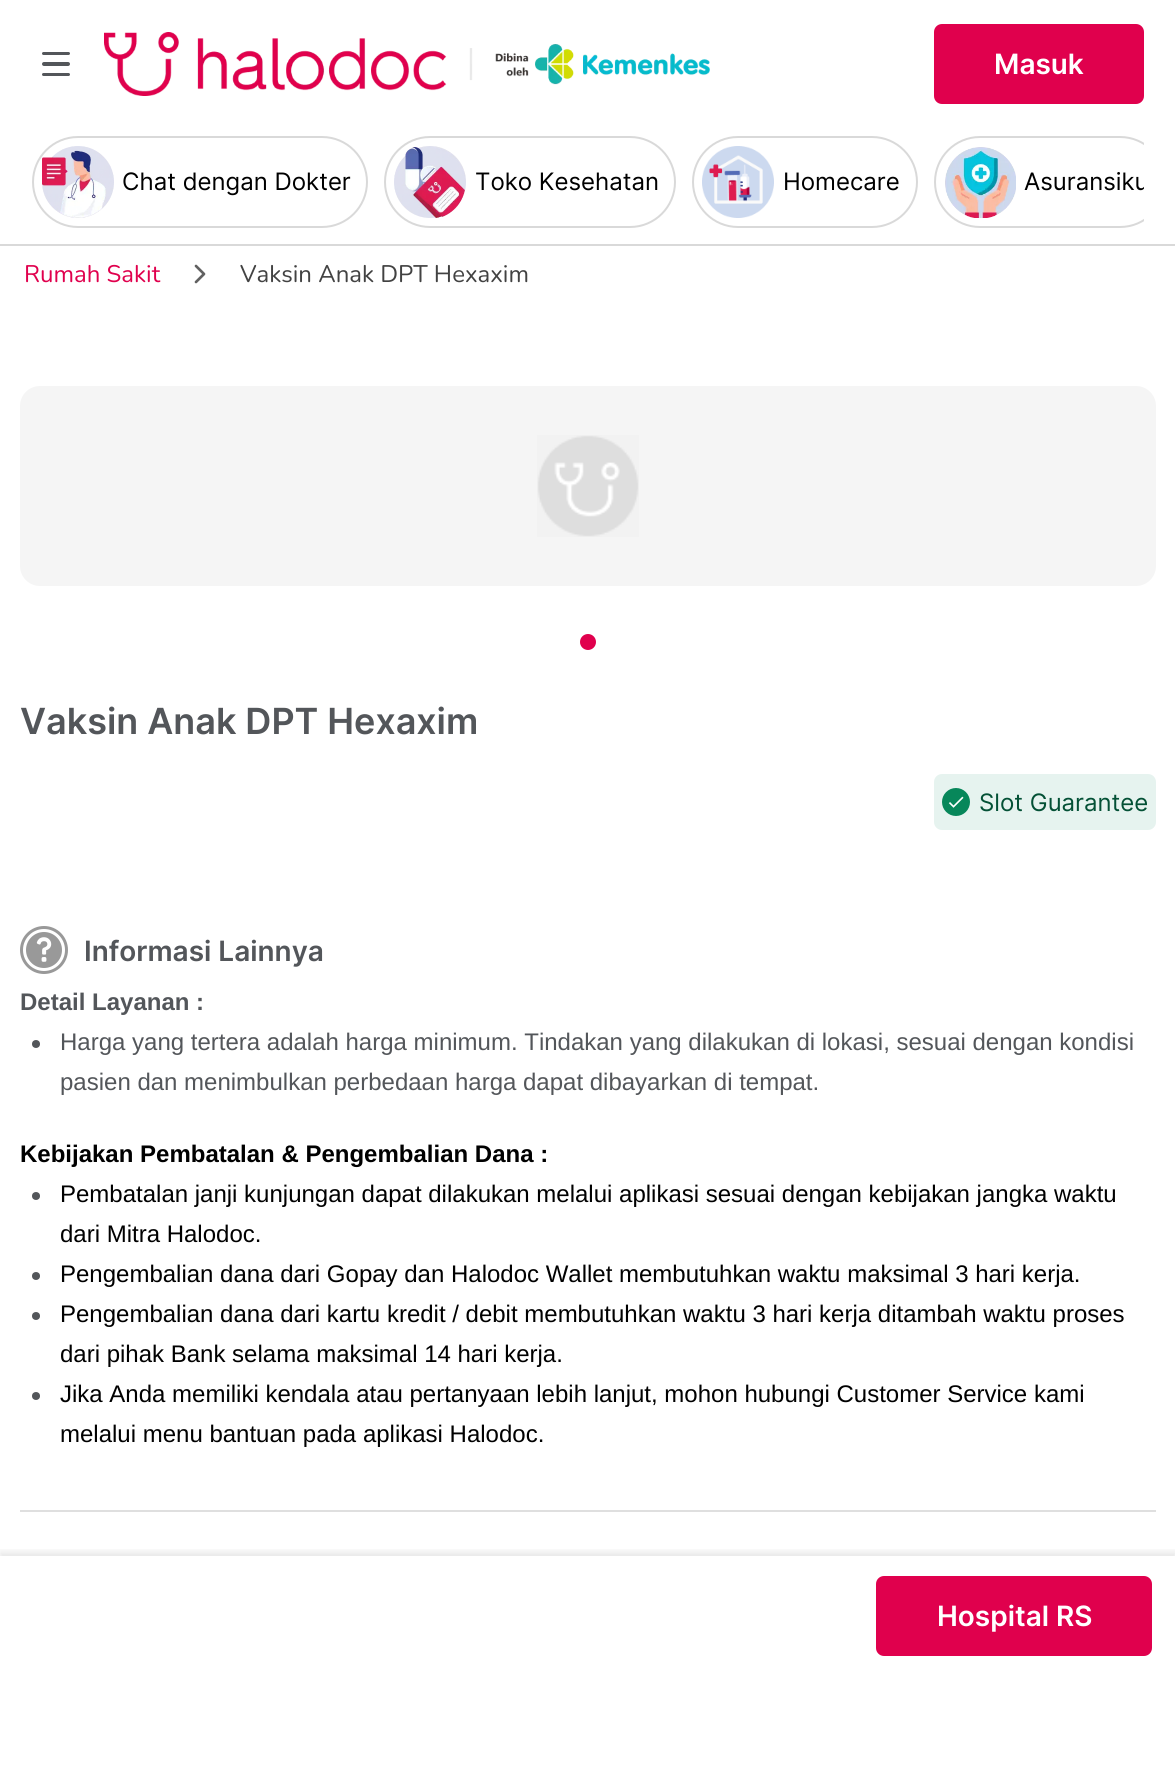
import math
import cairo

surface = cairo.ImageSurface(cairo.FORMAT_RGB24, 1175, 1767)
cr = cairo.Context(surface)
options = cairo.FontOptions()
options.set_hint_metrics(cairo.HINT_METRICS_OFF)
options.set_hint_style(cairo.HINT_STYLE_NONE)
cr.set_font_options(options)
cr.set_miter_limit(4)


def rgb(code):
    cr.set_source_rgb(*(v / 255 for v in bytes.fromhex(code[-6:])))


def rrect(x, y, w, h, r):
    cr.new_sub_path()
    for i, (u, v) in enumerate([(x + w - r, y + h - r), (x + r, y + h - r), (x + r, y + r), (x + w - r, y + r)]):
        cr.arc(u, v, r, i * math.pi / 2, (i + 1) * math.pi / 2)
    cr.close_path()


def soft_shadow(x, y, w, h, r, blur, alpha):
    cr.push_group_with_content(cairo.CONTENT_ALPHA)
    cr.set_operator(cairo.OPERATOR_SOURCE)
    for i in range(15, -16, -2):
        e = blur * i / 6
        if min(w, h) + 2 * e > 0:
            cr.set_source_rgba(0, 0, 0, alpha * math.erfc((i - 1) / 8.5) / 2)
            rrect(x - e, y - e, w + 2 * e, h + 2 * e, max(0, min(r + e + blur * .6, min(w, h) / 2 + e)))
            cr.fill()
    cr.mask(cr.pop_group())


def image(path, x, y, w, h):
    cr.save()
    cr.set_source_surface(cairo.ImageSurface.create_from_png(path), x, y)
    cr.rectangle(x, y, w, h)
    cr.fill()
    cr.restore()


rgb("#ffffff")
cr.paint()
rgb("#d9d9d9")
cr.rectangle(0, 244, 1175, 2)
cr.fill()
rgb("#53565a")
rrect(42, 52, 28, 3, 1.5)
cr.fill()
rrect(42, 62, 28, 4, 2)
cr.fill()
rrect(42, 73, 28, 3, 1.5)
cr.fill()
image("img/1.png", 104, 32, 606, 64)
rgb("#e0004d")
rrect(934, 24, 210, 80, 8)
cr.fill()
rrect(33, 137, 334, 90, 45)
rgb("#d9d9d9")
cr.stroke()
image("img/2.png", 42, 146, 72, 72)
rrect(385, 137, 290, 90, 45)
cr.stroke()
image("img/3.png", 394, 146, 72, 72)
rrect(693, 137, 224, 90, 45)
cr.stroke()
image("img/4.png", 702, 146, 72, 72)
cr.save()
cr.rectangle(32, 136, 1112, 92)
cr.clip()
rrect(935, 137, 230, 90, 45)
cr.stroke()
cr.restore()
image("img/5.png", 945, 147, 71, 71)
image("img/6.png", 194, 264, 12, 20)
rgb("#f5f5f5")
rrect(20, 386, 1136, 200, 20)
cr.fill()
image("img/7.png", 537, 435, 102, 102)
rgb("#e0004d")
cr.arc(588, 642, 8, 0, 2 * math.pi)
cr.fill()
rgb("#e6f3ef")
rrect(934, 774, 222, 56, 8)
cr.fill()
rgb("#07875a")
cr.arc(956, 802, 14, 0, 2 * math.pi)
cr.fill()
image("img/8.png", 948, 796, 16, 12)
rgb("#dfdfdf")
cr.rectangle(20, 1510, 1136, 2)
cr.fill()
image("img/9.png", 20, 926, 48, 48)
rgb("#53565a")
cr.arc(36, 1044, 4, 0, 2 * math.pi)
cr.fill()
cr.arc(36, 1196, 4, 0, 2 * math.pi)
cr.fill()
cr.arc(36, 1276, 4, 0, 2 * math.pi)
cr.fill()
cr.arc(36, 1316, 4, 0, 2 * math.pi)
cr.fill()
cr.arc(36, 1396, 4, 0, 2 * math.pi)
cr.fill()
cr.save()
cr.rectangle(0, 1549, 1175, 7)
cr.clip()
rgb("#000000")
soft_shadow(0, 1552, 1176, 120, 0, 4, 0.1)
cr.restore()
rgb("#e0004d")
rrect(876, 1576, 276, 80, 8)
cr.fill()
cr.select_font_face("Inter SemiBold")
cr.set_font_size(28)
rgb("#ffffff")
cr.move_to(994, 74)
cr.show_text("Masuk")
cr.select_font_face("Inter")
cr.set_font_size(24)
rgb("#000000")
for x, y, s in [
    (122, 190, "Chat dengan Dokter"),
    (475, 190, "Toko Kesehatan"),
    (783, 190, "Homecare"),
]:
    cr.move_to(x, y)
    cr.show_text(s)
cr.save()
cr.rectangle(32, 136, 1112, 92)
cr.clip()
cr.move_to(1024, 190)
cr.show_text("Asuransiku")
cr.restore()
cr.select_font_face("Nunito")
rgb("#e0004d")
cr.move_to(24, 282)
cr.show_text("Rumah Sakit")
rgb("#424242")
cr.move_to(240, 282)
cr.show_text("Vaksin Anak DPT Hexaxim")
cr.select_font_face("Inter SemiBold")
cr.set_font_size(36)
rgb("#53565a")
cr.move_to(20, 734)
cr.show_text("Vaksin Anak DPT Hexaxim")
cr.select_font_face("Inter")
cr.set_font_size(24)
rgb("#045136")
cr.move_to(979, 811)
cr.show_text("Slot Guarantee")
cr.select_font_face("Inter SemiBold")
cr.set_font_size(28)
rgb("#53565a")
cr.move_to(84, 961)
cr.show_text("Informasi Lainnya")
cr.select_font_face("Liberation Sans", cairo.FONT_SLANT_NORMAL, cairo.FONT_WEIGHT_BOLD)
cr.set_font_size(24)
cr.move_to(20, 1010)
cr.show_text("Detail Layanan :")
cr.select_font_face("Liberation Sans")
cr.move_to(60, 1050)
cr.show_text("Harga yang tertera adalah harga minimum. Tindakan yang dilakukan di lokasi, sesuai dengan kondisi")
cr.move_to(60, 1090)
cr.show_text("pasien dan menimbulkan perbedaan harga dapat dibayarkan di tempat.")
cr.select_font_face("Liberation Sans", cairo.FONT_SLANT_NORMAL, cairo.FONT_WEIGHT_BOLD)
rgb("#000000")
cr.move_to(20, 1162)
cr.show_text("Kebijakan Pembatalan & Pengembalian Dana :")
cr.select_font_face("Liberation Sans")
for x, y, s in [
    (60, 1202, "Pembatalan janji kunjungan dapat dilakukan melalui aplikasi sesuai dengan kebijakan jangka waktu"),
    (60, 1242, "dari Mitra Halodoc."),
    (60, 1282, "Pengembalian dana dari Gopay dan Halodoc Wallet membutuhkan waktu maksimal 3 hari kerja."),
    (60, 1322, "Pengembalian dana dari kartu kredit / debit membutuhkan waktu 3 hari kerja ditambah waktu proses"),
    (60, 1362, "dari pihak Bank selama maksimal 14 hari kerja."),
    (60, 1402, "Jika Anda memiliki kendala atau pertanyaan lebih lanjut, mohon hubungi Customer Service kami"),
    (60, 1442, "melalui menu bantuan pada aplikasi Halodoc."),
]:
    cr.move_to(x, y)
    cr.show_text(s)
cr.select_font_face("Inter SemiBold")
cr.set_font_size(28)
rgb("#ffffff")
cr.move_to(937, 1626)
cr.show_text("Hospital RS")
surface.write_to_png("page.png")
